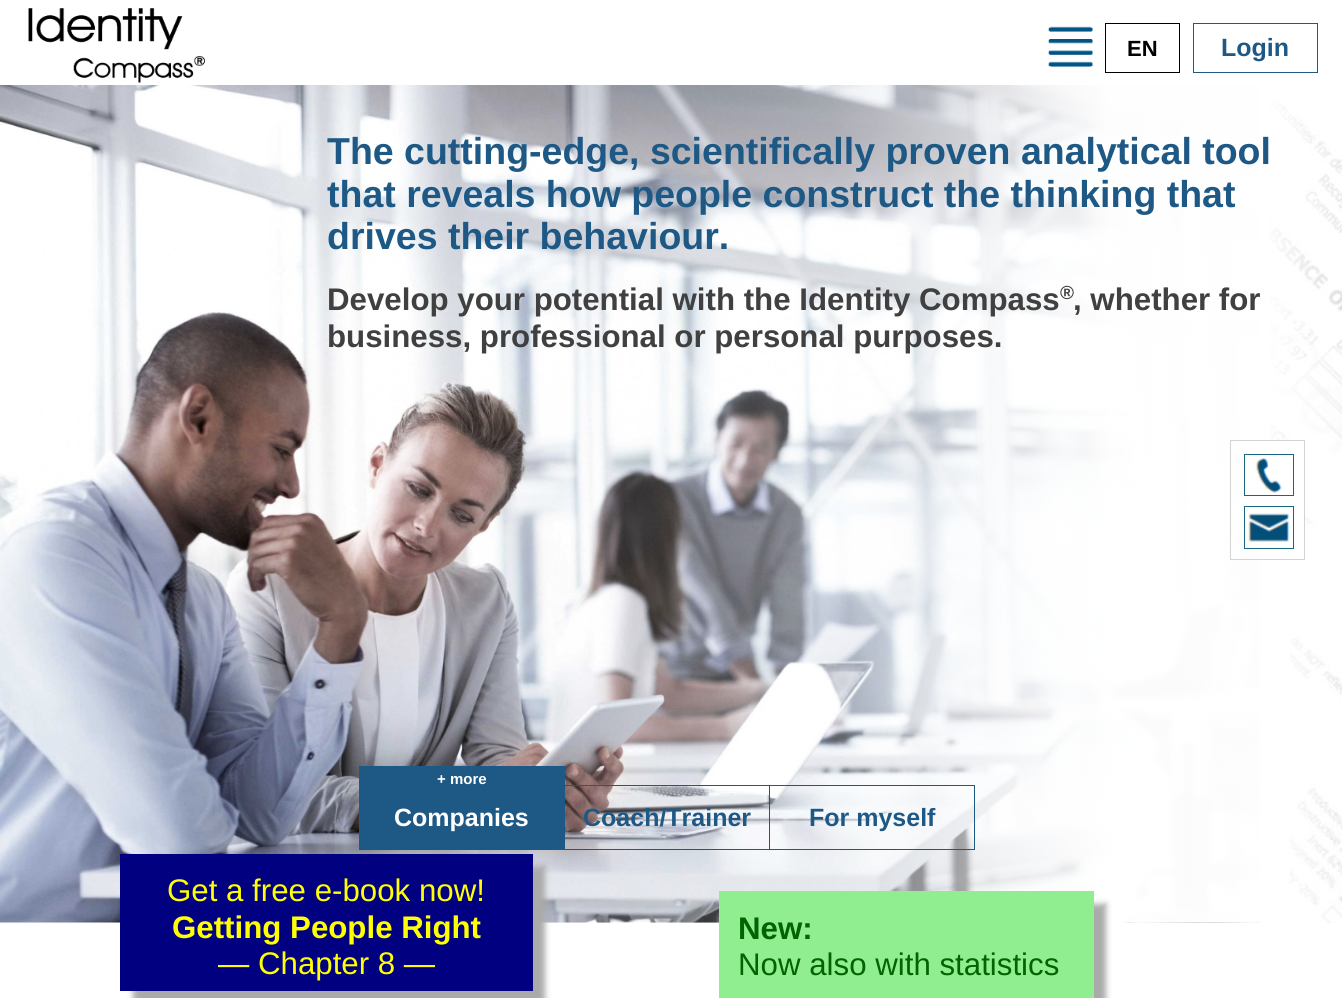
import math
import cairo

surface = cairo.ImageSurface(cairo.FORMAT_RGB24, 1342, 998)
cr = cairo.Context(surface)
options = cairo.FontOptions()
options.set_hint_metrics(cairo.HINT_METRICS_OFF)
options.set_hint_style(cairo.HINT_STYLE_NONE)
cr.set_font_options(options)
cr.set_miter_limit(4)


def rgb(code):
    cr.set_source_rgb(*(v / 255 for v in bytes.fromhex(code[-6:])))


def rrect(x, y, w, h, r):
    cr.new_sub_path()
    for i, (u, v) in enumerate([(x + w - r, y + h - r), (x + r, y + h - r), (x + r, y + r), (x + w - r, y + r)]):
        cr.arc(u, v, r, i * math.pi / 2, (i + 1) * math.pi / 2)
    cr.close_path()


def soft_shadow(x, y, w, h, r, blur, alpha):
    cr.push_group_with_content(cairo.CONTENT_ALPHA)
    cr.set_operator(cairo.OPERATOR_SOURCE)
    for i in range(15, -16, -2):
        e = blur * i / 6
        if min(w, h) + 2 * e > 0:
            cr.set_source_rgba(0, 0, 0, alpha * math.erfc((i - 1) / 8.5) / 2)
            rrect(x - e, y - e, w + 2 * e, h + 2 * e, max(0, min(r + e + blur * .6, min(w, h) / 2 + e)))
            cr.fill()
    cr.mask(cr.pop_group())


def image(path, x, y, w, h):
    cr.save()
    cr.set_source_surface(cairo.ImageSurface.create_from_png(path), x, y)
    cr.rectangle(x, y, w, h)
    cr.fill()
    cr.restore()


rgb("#ffffff")
cr.paint()
image("img/1.png", 1048, 26, 45, 41)
image("img/2.png", 28, 8, 177, 75)
cr.rectangle(1105.5, 23.5, 74, 49)
rgb("#000000")
cr.set_line_width(1)
cr.stroke()
cr.rectangle(1193.5, 23.5, 124, 49)
rgb("#1e5986")
cr.stroke()
image("img/3.png", 0, 85, 1260, 838)
image("img/4.png", 1270, 101, 72, 822)
cr.rectangle(564.5, 785.5, 205, 64)
cr.stroke()
cr.rectangle(359, 766, 206, 24)
cr.fill()
cr.rectangle(359, 790, 205, 60)
cr.fill()
cr.rectangle(769.5, 785.5, 205, 64)
cr.stroke()
rgb("#aaaaaa")
soft_shadow(133, 866, 412, 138, 0, 3, 1)
rgb("#000080")
cr.rectangle(120, 854, 413, 137)
cr.fill()
rgb("#aaaaaa")
soft_shadow(731, 904, 375, 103, 0, 3, 1)
rgb("#90ee90")
cr.rectangle(719, 891, 375, 107)
cr.fill()
rgb("#ffffff")
cr.rectangle(1270, 441, 34, 83)
cr.fill()
cr.rectangle(1230.5, 440.5, 74, 119)
rgb("#d3d3d3")
cr.stroke()
cr.rectangle(1244.5, 454.5, 49, 41)
rgb("#17687e")
cr.stroke()
image("img/5.png", 1255, 458, 27, 35)
cr.rectangle(1244.5, 506.5, 49, 42)
cr.stroke()
image("img/6.png", 1248, 513, 42, 29)
cr.select_font_face("Liberation Sans", cairo.FONT_SLANT_NORMAL, cairo.FONT_WEIGHT_BOLD)
cr.set_font_size(22)
rgb("#000000")
cr.move_to(1127, 56)
cr.show_text("EN")
cr.set_font_size(25)
rgb("#1e5986")
cr.move_to(1221, 56)
cr.show_text("Login")
cr.set_font_size(37.5)
for x, y, s in [
    (327, 164, "The cutting-edge, scientifically proven analytical tool"),
    (327, 207, "that reveals how people construct the thinking that"),
    (327, 249, "drives their behaviour."),
]:
    cr.move_to(x, y)
    cr.show_text(s)
cr.set_font_size(31.25)
rgb("#404040")
cr.move_to(327, 310)
cr.show_text("Develop your potential with the Identity Compass")
cr.set_font_size(19)
cr.move_to(1060, 299)
cr.show_text("®")
cr.set_font_size(31.25)
cr.move_to(1073, 310)
cr.show_text(", whether for")
cr.move_to(327, 347)
cr.show_text("business, professional or personal purposes.")
cr.set_font_size(15)
rgb("#ffffff")
cr.move_to(437, 784)
cr.show_text("+ more")
cr.set_font_size(25)
cr.move_to(394, 826)
cr.show_text("Companies")
rgb("#1e5986")
cr.move_to(583, 826)
cr.show_text("Coach/Trainer")
cr.move_to(809, 826)
cr.show_text("For myself")
cr.select_font_face("Liberation Sans")
cr.set_font_size(31.25)
rgb("#ffff00")
cr.move_to(167, 901)
cr.show_text("Get a free e-book now!")
cr.select_font_face("Liberation Sans", cairo.FONT_SLANT_NORMAL, cairo.FONT_WEIGHT_BOLD)
cr.move_to(172, 938)
cr.show_text("Getting People Right")
cr.select_font_face("Liberation Sans")
cr.move_to(218, 974)
cr.show_text("— Chapter 8 —")
cr.select_font_face("Liberation Sans", cairo.FONT_SLANT_NORMAL, cairo.FONT_WEIGHT_BOLD)
rgb("#006400")
cr.move_to(738, 939)
cr.show_text("New:")
cr.select_font_face("Liberation Sans")
cr.move_to(738, 975)
cr.show_text("Now also with statistics")
surface.write_to_png("page.png")
